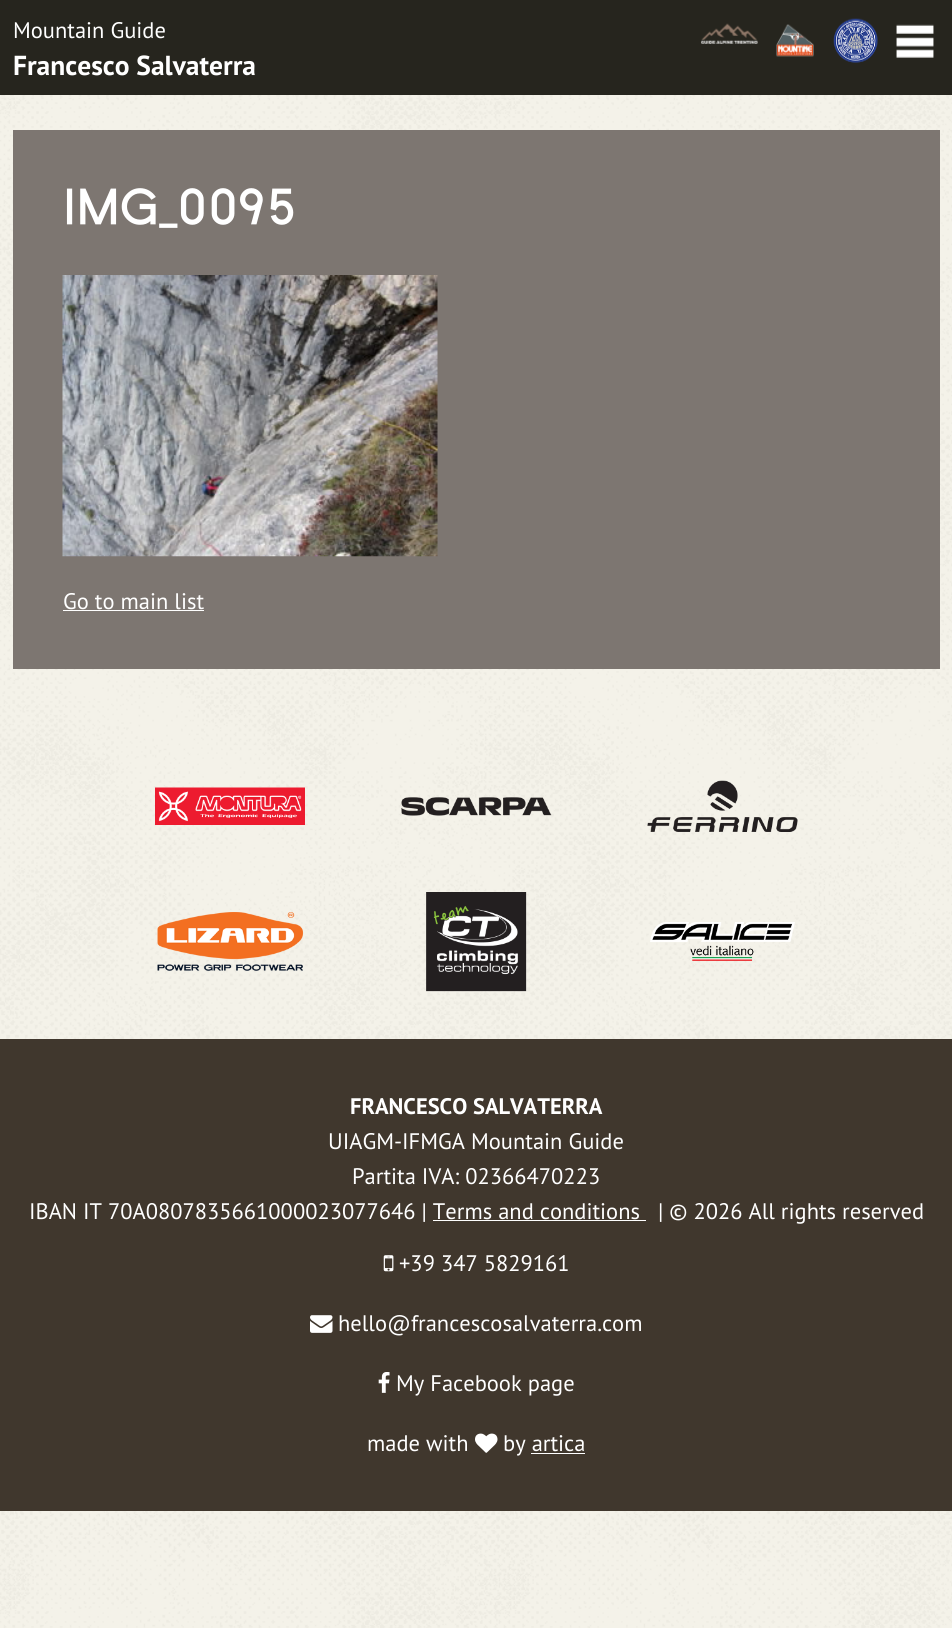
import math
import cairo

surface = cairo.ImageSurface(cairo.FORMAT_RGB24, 952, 1628)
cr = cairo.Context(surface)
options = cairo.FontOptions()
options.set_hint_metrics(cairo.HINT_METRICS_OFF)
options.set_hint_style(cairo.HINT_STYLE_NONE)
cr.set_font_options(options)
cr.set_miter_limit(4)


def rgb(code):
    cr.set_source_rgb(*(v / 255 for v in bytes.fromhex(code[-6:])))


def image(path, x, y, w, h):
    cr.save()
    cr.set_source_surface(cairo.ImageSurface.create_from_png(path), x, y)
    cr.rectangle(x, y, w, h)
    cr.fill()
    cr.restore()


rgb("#ffffff")
cr.paint()
image("img/1.png", 0, 97, 952, 1531)
rgb("#26251e")
cr.rectangle(0, 0, 952, 95)
cr.fill()
image("img/2.png", 701, 23, 57, 21)
image("img/3.png", 776, 24, 38, 33)
image("img/4.png", 833, 18, 45, 45)
image("img/5.png", 896, 24, 38, 34)
image("img/6.png", 0, 95, 952, 3)
rgb("#7d7671")
cr.rectangle(13, 130, 927, 539)
cr.fill()
image("img/7.png", 62, 275, 376, 282)
rgb("#ffffff")
cr.rectangle(63, 610, 141, 1)
cr.fill()
image("img/8.png", 155, 787, 150, 38)
image("img/9.png", 401, 797, 151, 19)
image("img/10.png", 647, 780, 151, 52)
image("img/11.png", 157, 912, 146, 59)
image("img/12.png", 426, 892, 101, 100)
image("img/13.png", 650, 922, 145, 39)
rgb("#40372d")
cr.rectangle(0, 1039, 952, 472)
cr.fill()
rgb("#ffffff")
cr.rectangle(433, 1220, 213, 1)
cr.fill()
image("img/14.png", 383, 1255, 11, 17)
image("img/15.png", 310, 1315, 23, 18)
image("img/16.png", 378, 1372, 12, 21)
image("img/17.png", 475, 1433, 23, 20)
cr.rectangle(531, 1453, 54, 1)
cr.fill()
cr.select_font_face("PT Sans")
cr.set_font_size(22.5)
cr.move_to(13, 38)
cr.show_text("Mountain Guide")
cr.select_font_face("PT Sans", cairo.FONT_SLANT_NORMAL, cairo.FONT_WEIGHT_BOLD)
cr.set_font_size(27.5)
cr.move_to(13, 75)
cr.show_text("Francesco Salvaterra")
cr.select_font_face("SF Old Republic", cairo.FONT_SLANT_NORMAL, cairo.FONT_WEIGHT_BOLD)
cr.set_font_size(52.5)
cr.move_to(63, 224)
cr.show_text("IMG_0095")
cr.select_font_face("PT Sans")
cr.set_font_size(22.5)
cr.move_to(63, 609)
cr.show_text("Go to main list")
cr.select_font_face("PT Sans", cairo.FONT_SLANT_NORMAL, cairo.FONT_WEIGHT_BOLD)
cr.move_to(350, 1114)
cr.show_text("FRANCESCO SALVATERRA")
cr.select_font_face("PT Sans")
for x, y, s in [
    (328, 1149, "UIAGM-IFMGA Mountain Guide"),
    (352, 1184, "Partita IVA: 02366470223"),
    (29, 1219, "IBAN IT 70A0807835661000023077646 | Terms and conditions"),
    (658, 1219, "| © 2026 All rights reserved"),
    (399, 1271, "+39 347 5829161"),
    (338, 1331, "hello@francescosalvaterra.com"),
    (396, 1391, "My Facebook page"),
    (367, 1451, "made with"),
    (503, 1451, "by artica"),
]:
    cr.move_to(x, y)
    cr.show_text(s)
surface.write_to_png("page.png")
